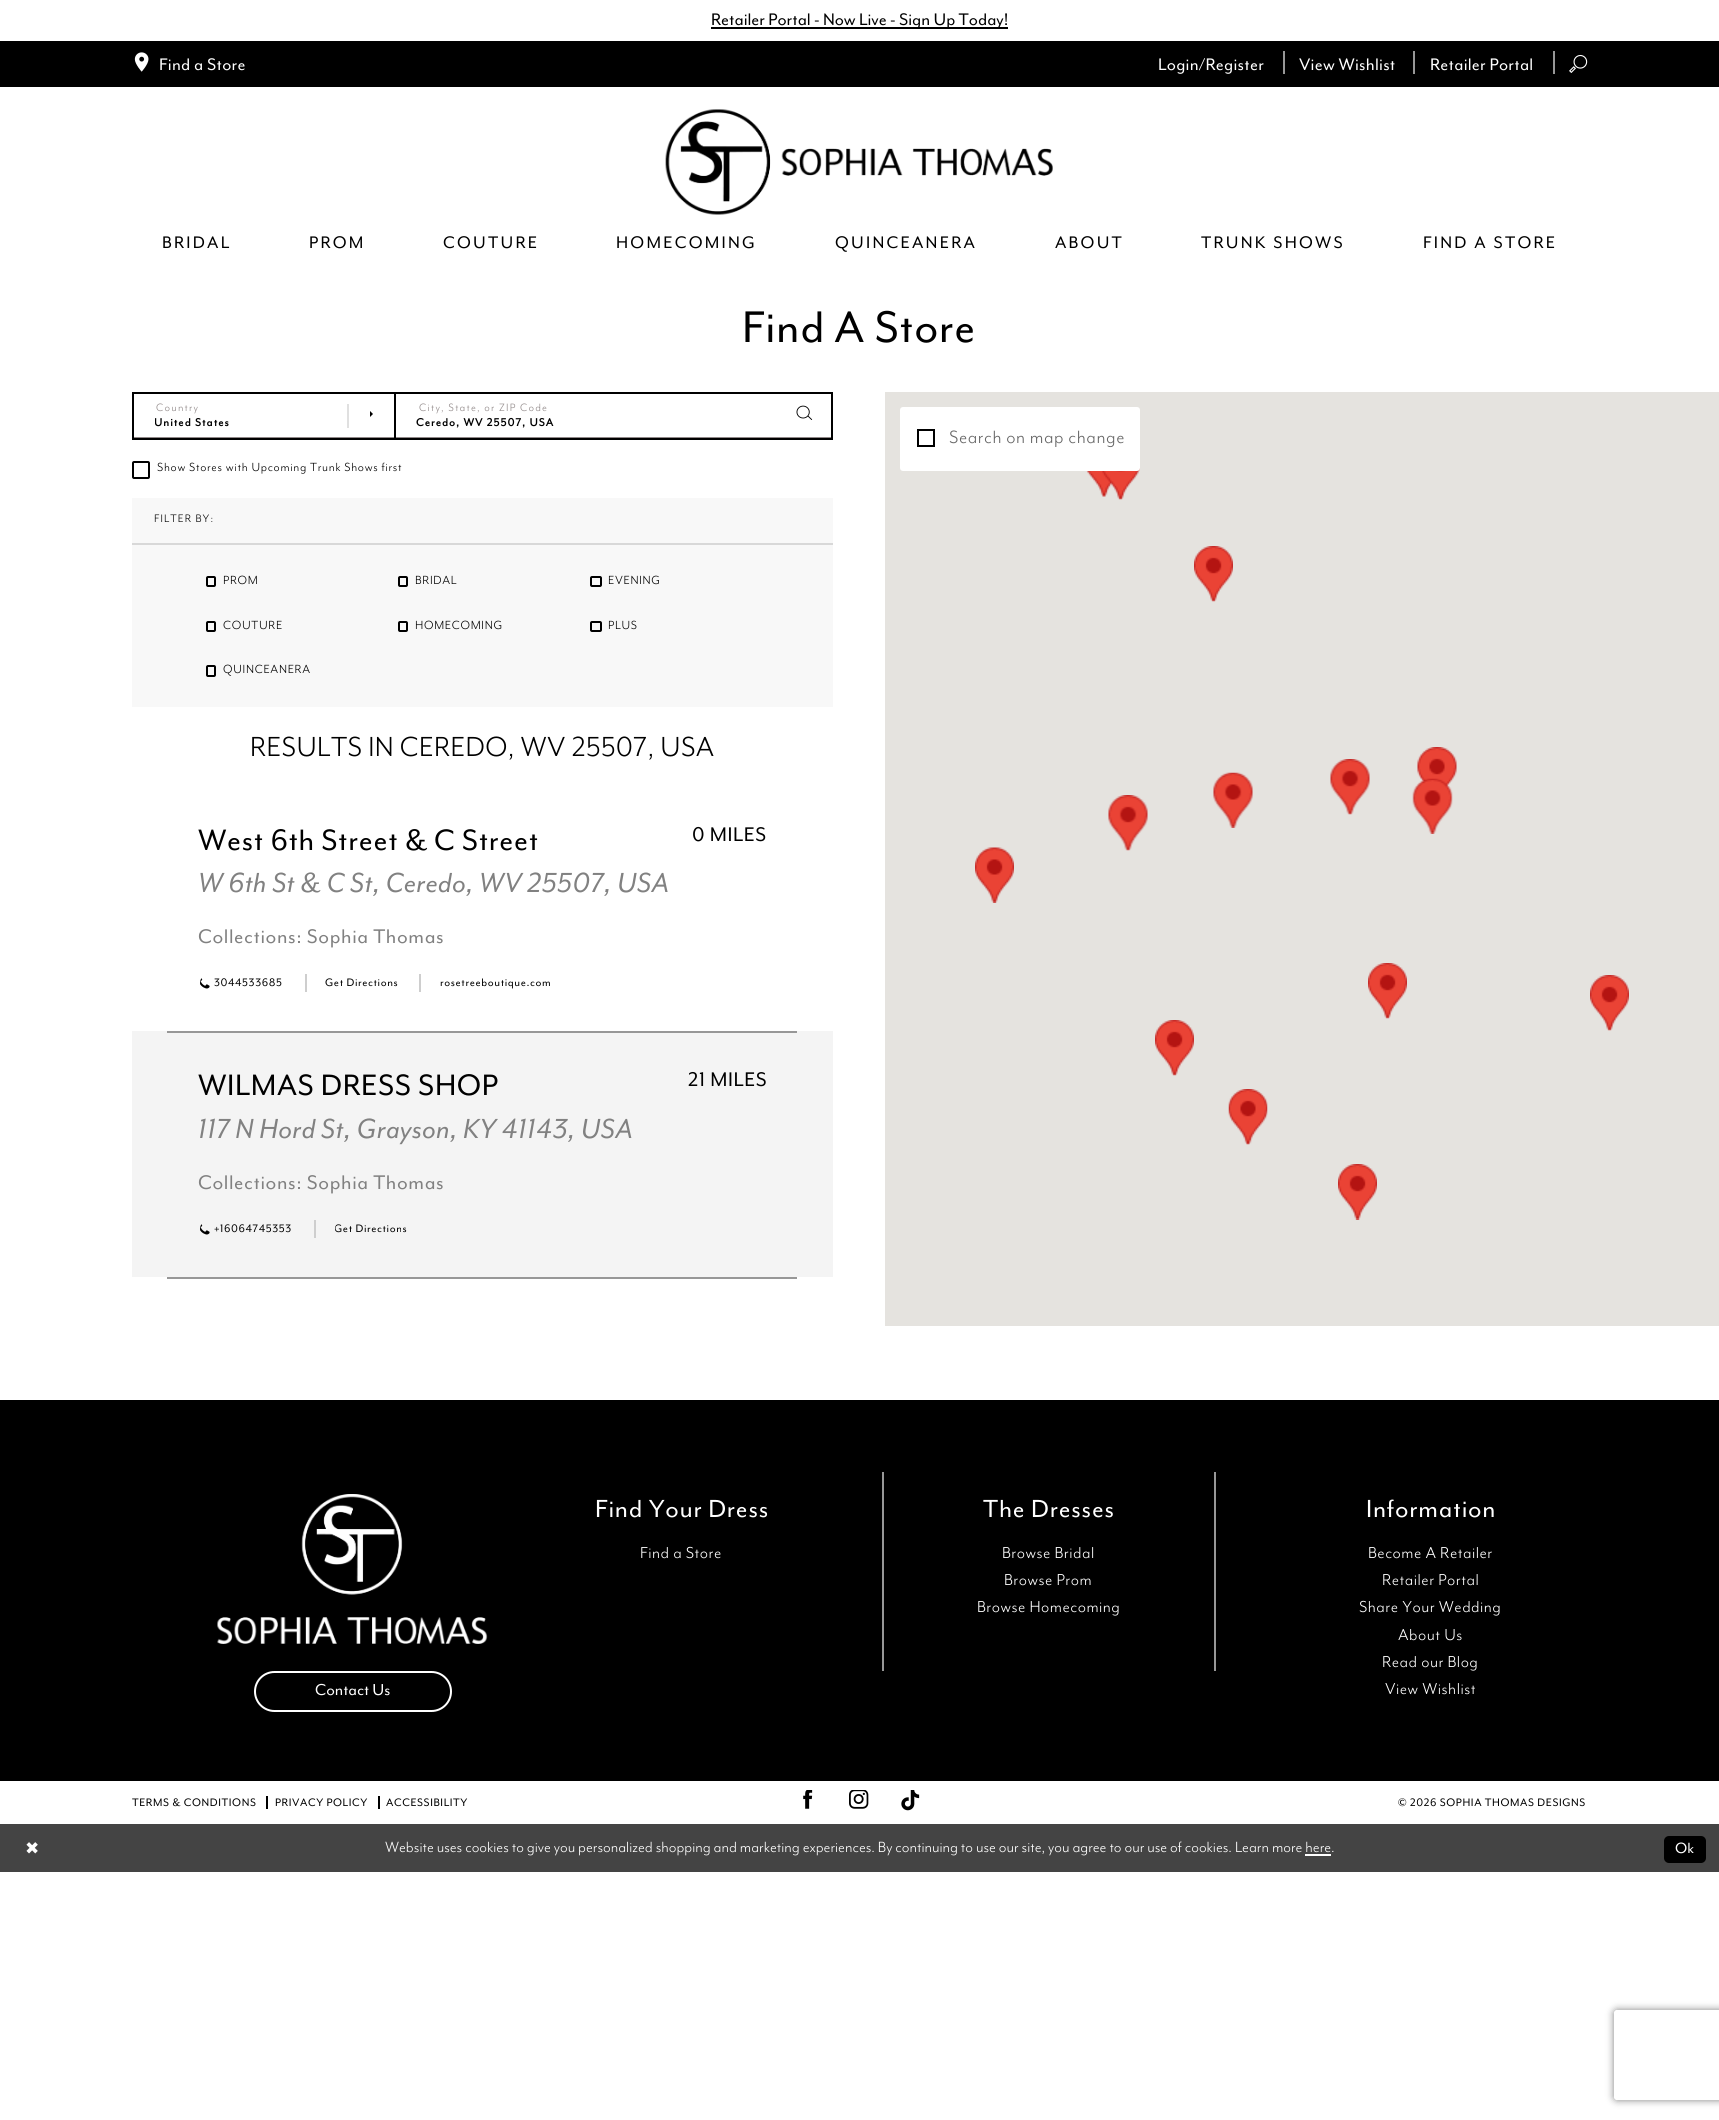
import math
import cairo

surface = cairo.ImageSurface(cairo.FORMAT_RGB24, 1719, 2120)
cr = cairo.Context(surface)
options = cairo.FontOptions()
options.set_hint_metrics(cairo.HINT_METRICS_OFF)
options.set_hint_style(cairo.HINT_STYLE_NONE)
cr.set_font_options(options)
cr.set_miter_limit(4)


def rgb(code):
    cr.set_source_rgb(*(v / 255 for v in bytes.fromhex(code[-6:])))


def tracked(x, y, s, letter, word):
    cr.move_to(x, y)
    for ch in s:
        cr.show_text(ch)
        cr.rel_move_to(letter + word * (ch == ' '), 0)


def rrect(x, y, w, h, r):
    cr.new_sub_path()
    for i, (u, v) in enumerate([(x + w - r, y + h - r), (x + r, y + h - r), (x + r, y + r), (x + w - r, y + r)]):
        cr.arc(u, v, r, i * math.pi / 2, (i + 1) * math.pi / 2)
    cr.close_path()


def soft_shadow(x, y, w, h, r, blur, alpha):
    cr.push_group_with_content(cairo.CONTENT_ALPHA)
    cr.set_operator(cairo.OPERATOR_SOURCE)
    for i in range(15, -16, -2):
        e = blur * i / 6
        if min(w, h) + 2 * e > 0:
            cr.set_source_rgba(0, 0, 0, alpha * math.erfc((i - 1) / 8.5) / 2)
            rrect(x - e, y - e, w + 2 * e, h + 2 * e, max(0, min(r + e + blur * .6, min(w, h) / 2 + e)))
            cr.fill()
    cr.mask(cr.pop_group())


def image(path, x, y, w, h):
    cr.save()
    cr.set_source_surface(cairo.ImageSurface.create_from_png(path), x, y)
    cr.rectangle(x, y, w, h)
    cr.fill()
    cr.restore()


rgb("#ffffff")
cr.paint()
rgb("#000000")
cr.rectangle(711, 27, 297, 2)
cr.fill()
cr.rectangle(0, 41, 1719, 46)
cr.fill()
image("img/1.png", 134, 52, 15, 20)
for x, y, w, h, color in [
    (1283, 51, 2, 23, "#979797"),
    (1413, 51, 2, 23, "#979797"),
    (1553, 51, 2, 23, "#979797"),
]:
    rgb(color)
    cr.rectangle(x, y, w, h)
    cr.fill()
image("img/2.png", 1569, 54, 19, 19)
image("img/3.png", 665, 109, 388, 106)
rgb("#e0e0e0")
cr.rectangle(347, 404, 2, 24)
cr.fill()
rgb("#000000")
cr.new_path()
cr.move_to(370, 417)
cr.line_to(370, 411)
cr.line_to(373, 414)
cr.close_path()
cr.fill()
rgb("#8f8787")
cr.rectangle(132, 437, 701, 1)
cr.fill()
cr.rectangle(133, 393, 262, 46)
rgb("#000000")
cr.stroke()
image("img/4.png", 796, 405, 17, 15)
for x, y, w, h, color in [
    (396, 392, 437, 2, "#000000"),
    (831, 392, 2, 48, "#000000"),
    (396, 438, 437, 2, "#000000"),
]:
    rgb(color)
    cr.rectangle(x, y, w, h)
    cr.fill()
rrect(133, 462, 16, 16, 1)
cr.stroke()
rgb("#f8f8f8")
cr.rectangle(132, 498, 701, 209)
cr.fill()
rgb("#d8d8d8")
cr.rectangle(132, 543, 701, 2)
cr.fill()
rrect(207, 577, 8, 9, 1)
rgb("#000000")
cr.stroke()
rrect(399, 577, 8, 9, 1)
cr.stroke()
rrect(591, 577, 10, 9, 1)
cr.stroke()
rrect(207, 622, 8, 9, 1)
cr.stroke()
rrect(399, 622, 8, 9, 1)
cr.stroke()
rrect(591, 622, 10, 9, 1)
cr.stroke()
rrect(207, 666, 8, 10, 1)
cr.stroke()
rgb("#e5e3df")
cr.rectangle(885, 392, 834, 934)
cr.fill()
image("img/5.png", 1086, 471, 27, 26)
image("img/6.png", 1101, 468, 39, 32)
image("img/7.png", 1194, 546, 39, 56)
image("img/8.png", 1213, 772, 40, 56)
image("img/9.png", 1330, 759, 40, 56)
image("img/10.png", 1417, 747, 40, 41)
image("img/11.png", 1108, 795, 40, 56)
image("img/12.png", 1412, 778, 41, 56)
image("img/13.png", 975, 847, 39, 56)
image("img/7.png", 1368, 963, 39, 56)
image("img/7.png", 1590, 975, 39, 56)
image("img/7.png", 1155, 1020, 39, 56)
image("img/14.png", 1228, 1089, 40, 56)
image("img/15.png", 1338, 1164, 39, 56)
rgb("#ffffff")
rrect(900, 407, 240, 64, 3)
cr.fill()
cr.rectangle(918, 430, 16, 16)
rgb("#000000")
cr.stroke()
image("img/16.png", 200, 978, 10, 11)
for x, y, w, h, color in [
    (305, 974, 2, 18, "#cecece"),
    (419, 974, 2, 18, "#cecece"),
    (132, 1031, 701, 246, "#f4f4f4"),
    (167, 1031, 630, 2, "#979797"),
]:
    rgb(color)
    cr.rectangle(x, y, w, h)
    cr.fill()
image("img/17.png", 200, 1224, 10, 11)
for x, y, w, h, color in [
    (314, 1220, 2, 18, "#cecece"),
    (167, 1277, 630, 2, "#979797"),
    (0, 1400, 1719, 381, "#000000"),
]:
    rgb(color)
    cr.rectangle(x, y, w, h)
    cr.fill()
image("img/18.png", 217, 1494, 271, 150)
rrect(255, 1672, 196, 39, 19.5)
rgb("#ffffff")
cr.stroke()
for x, y, w, h, color in [
    (882, 1472, 2, 199, "#979797"),
    (1214, 1472, 2, 199, "#979797"),
    (266, 1796, 2, 13, "#000000"),
    (378, 1796, 2, 13, "#000000"),
]:
    rgb(color)
    cr.rectangle(x, y, w, h)
    cr.fill()
image("img/19.png", 803, 1790, 10, 19)
image("img/20.png", 849, 1790, 20, 19)
image("img/21.png", 901, 1790, 19, 21)
rgb("#444444")
cr.rectangle(0, 1824, 1719, 48)
cr.fill()
rgb("#ffffff")
cr.rectangle(1305, 1854, 26, 2)
cr.fill()
rgb("#000000")
rrect(1664, 1836, 42, 27, 5)
cr.fill()
cr.save()
cr.set_fill_rule(cairo.FILL_RULE_EVEN_ODD)
cr.new_path()
cr.move_to(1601, 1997)
cr.line_to(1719, 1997)
cr.line_to(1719, 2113)
cr.line_to(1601, 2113)
cr.close_path()
cr.move_to(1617, 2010)
cr.line_to(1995, 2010)
cr.curve_to(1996.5, 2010, 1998, 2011.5, 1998, 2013)
cr.line_to(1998, 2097)
cr.curve_to(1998, 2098.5, 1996.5, 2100, 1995, 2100)
cr.line_to(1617, 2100)
cr.curve_to(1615.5, 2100, 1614, 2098.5, 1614, 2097)
cr.line_to(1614, 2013)
cr.curve_to(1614, 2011.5, 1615.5, 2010, 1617, 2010)
cr.close_path()
cr.clip()
rgb("#808080")
soft_shadow(1614, 2010, 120, 90, 3, 4, 1)
cr.restore()
cr.select_font_face("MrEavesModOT")
cr.set_font_size(19.3)
cr.move_to(711, 25)
cr.show_text("Retailer Portal - Now Live - Sign Up Today!")
rgb("#ffffff")
for x, y, s in [
    (159, 70, "Find a Store"),
    (1158, 70, "Login/Register"),
    (1299, 70, "View Wishlist"),
    (1430, 70, "Retailer Portal"),
]:
    tracked(x, y, s, 0.25, 0)
rgb("#000000")
for x, y, s in [
    (162, 248, "BRIDAL"),
    (309, 248, "PROM"),
    (443, 248, "COUTURE"),
    (616, 248, "HOMECOMING"),
    (835, 248, "QUINCEANERA"),
    (1055, 248, "ABOUT"),
    (1201, 248, "TRUNK SHOWS"),
    (1423, 248, "FIND A STORE"),
]:
    tracked(x, y, s, 2.25, 0)
cr.set_font_size(51)
tracked(742, 342, "Find A Store", 0.6, 0)
cr.select_font_face("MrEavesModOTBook")
cr.set_font_size(12.25)
rgb("#8f8787")
tracked(156, 411, "Country", 1.25, 0)
cr.save()
cr.rectangle(155, 416, 192, 15)
cr.clip()
cr.select_font_face("MrEavesModOT", cairo.FONT_SLANT_NORMAL, cairo.FONT_WEIGHT_BOLD)
cr.set_font_size(12.5)
rgb("#000000")
tracked(154, 426, "United States", 1.1, 0)
cr.restore()
tracked(419, 411, "City, State, or ZIP Code", 1.25, 0)
cr.select_font_face("MrEavesModOT", cairo.FONT_SLANT_NORMAL, cairo.FONT_WEIGHT_BOLD)
cr.set_font_size(12.5)
rgb("#000000")
tracked(416, 426, "Ceredo, WV 25507, USA", 1.1, 0)
cr.select_font_face("MrEavesModOTBook")
cr.set_font_size(13.6)
tracked(157, 471, "Show Stores with Upcoming Trunk Shows first", 0.7, 0)
cr.set_font_size(12.5)
tracked(154, 522, "FILTER BY:", 1.1, 0)
cr.set_font_size(13.6)
for x, y, s in [
    (223, 584, "PROM"),
    (415, 584, "BRIDAL"),
    (608, 584, "EVENING"),
    (223, 629, "COUTURE"),
    (415, 629, "HOMECOMING"),
    (608, 629, "PLUS"),
    (223, 673, "QUINCEANERA"),
]:
    tracked(x, y, s, 0.7, 0)
cr.set_font_size(20.5)
rgb("#666666")
tracked(949, 443, "Search on map change", 0.6, 0)
cr.set_font_size(31.8)
rgb("#000000")
tracked(250, 756, "RESULTS IN CEREDO, WV 25507, USA", 0.35, 0)
cr.select_font_face("MrEavesModOT")
cr.set_font_size(34)
tracked(198, 850, "West 6th Street & C Street", 0.6, 0)
cr.set_font_size(22.75)
tracked(692, 841, "0 MILES", 0.6, 0)
cr.select_font_face("MrEavesModOT", cairo.FONT_SLANT_ITALIC)
cr.set_font_size(31.8)
rgb("#818181")
tracked(198, 892, "W 6th St & C St, Ceredo, WV 25507, USA", 0.35, 0)
cr.select_font_face("MrEavesModOT")
cr.set_font_size(22.75)
tracked(198, 943, "Collections: Sophia Thomas", 0.6, 0)
cr.set_font_size(12.5)
rgb("#000000")
for x, y, s in [
    (214, 986, "3044533685"),
    (325, 986, "Get Directions"),
    (440, 986, "rosetreeboutique.com"),
]:
    tracked(x, y, s, 0.6, 0)
cr.set_font_size(34)
tracked(198, 1095, "WILMAS DRESS SHOP", 0.6, 0)
cr.set_font_size(22.75)
tracked(688, 1086, "21 MILES", 0.6, 0)
cr.select_font_face("MrEavesModOT", cairo.FONT_SLANT_ITALIC)
cr.set_font_size(31.8)
rgb("#818181")
tracked(198, 1138, "117 N Hord St, Grayson, KY 41143, USA", 0.35, 0)
cr.select_font_face("MrEavesModOT")
cr.set_font_size(22.75)
tracked(198, 1189, "Collections: Sophia Thomas", 0.6, 0)
cr.set_font_size(12.5)
rgb("#000000")
tracked(214, 1232, "+16064745353", 0.6, 0)
cr.save()
rrect(335, 1220, 73, 18, 9)
cr.clip()
tracked(334, 1232, "Get Directions", 0.6, 0)
cr.restore()
cr.set_font_size(18.25)
rgb("#ffffff")
cr.move_to(315, 1695)
cr.show_text("Contact Us")
cr.set_font_size(28.5)
tracked(595, 1517, "Find Your Dress", 0.75, 0)
cr.select_font_face("MrEavesModOTBook")
cr.set_font_size(18.25)
tracked(640, 1558, "Find a Store", 0.5, 0)
cr.select_font_face("MrEavesModOT")
cr.set_font_size(28.5)
tracked(983, 1517, "The Dresses", 0.75, 0)
cr.select_font_face("MrEavesModOTBook")
cr.set_font_size(18.25)
for x, y, s in [
    (1002, 1558, "Browse Bridal"),
    (1004, 1585, "Browse Prom"),
    (977, 1612, "Browse Homecoming"),
]:
    tracked(x, y, s, 0.5, 0)
cr.select_font_face("MrEavesModOT")
cr.set_font_size(28.5)
tracked(1366, 1517, "Information", 0.75, 0)
cr.select_font_face("MrEavesModOTBook")
cr.set_font_size(18.25)
for x, y, s in [
    (1368, 1558, "Become A Retailer"),
    (1382, 1585, "Retailer Portal"),
    (1359, 1612, "Share Your Wedding"),
    (1398, 1640, "About Us"),
    (1382, 1667, "Read our Blog"),
    (1385, 1694, "View Wishlist"),
]:
    tracked(x, y, s, 0.5, 0)
cr.select_font_face("MrEavesModOT")
cr.set_font_size(12.5)
rgb("#000000")
for x, y, s in [
    (132, 1806, "TERMS & CONDITIONS"),
    (275, 1806, "PRIVACY POLICY"),
    (386, 1806, "ACCESSIBILITY"),
    (1398, 1806, "© 2026 SOPHIA THOMAS DESIGNS"),
]:
    tracked(x, y, s, 0.6, 0)
cr.select_font_face("DejaVu Sans")
cr.set_font_size(17.05)
rgb("#ffffff")
cr.move_to(25, 1854)
cr.show_text("✖")
cr.select_font_face("MrEavesModOTBook")
cr.move_to(385, 1852)
cr.show_text("Website uses cookies to give you personalized shopping and marketing experiences. By continuing to use our site, you agree to our use of cookies. Learn more here.")
cr.select_font_face("MrEavesModOT")
cr.move_to(1675, 1853)
cr.show_text("Ok")
surface.write_to_png("page.png")
